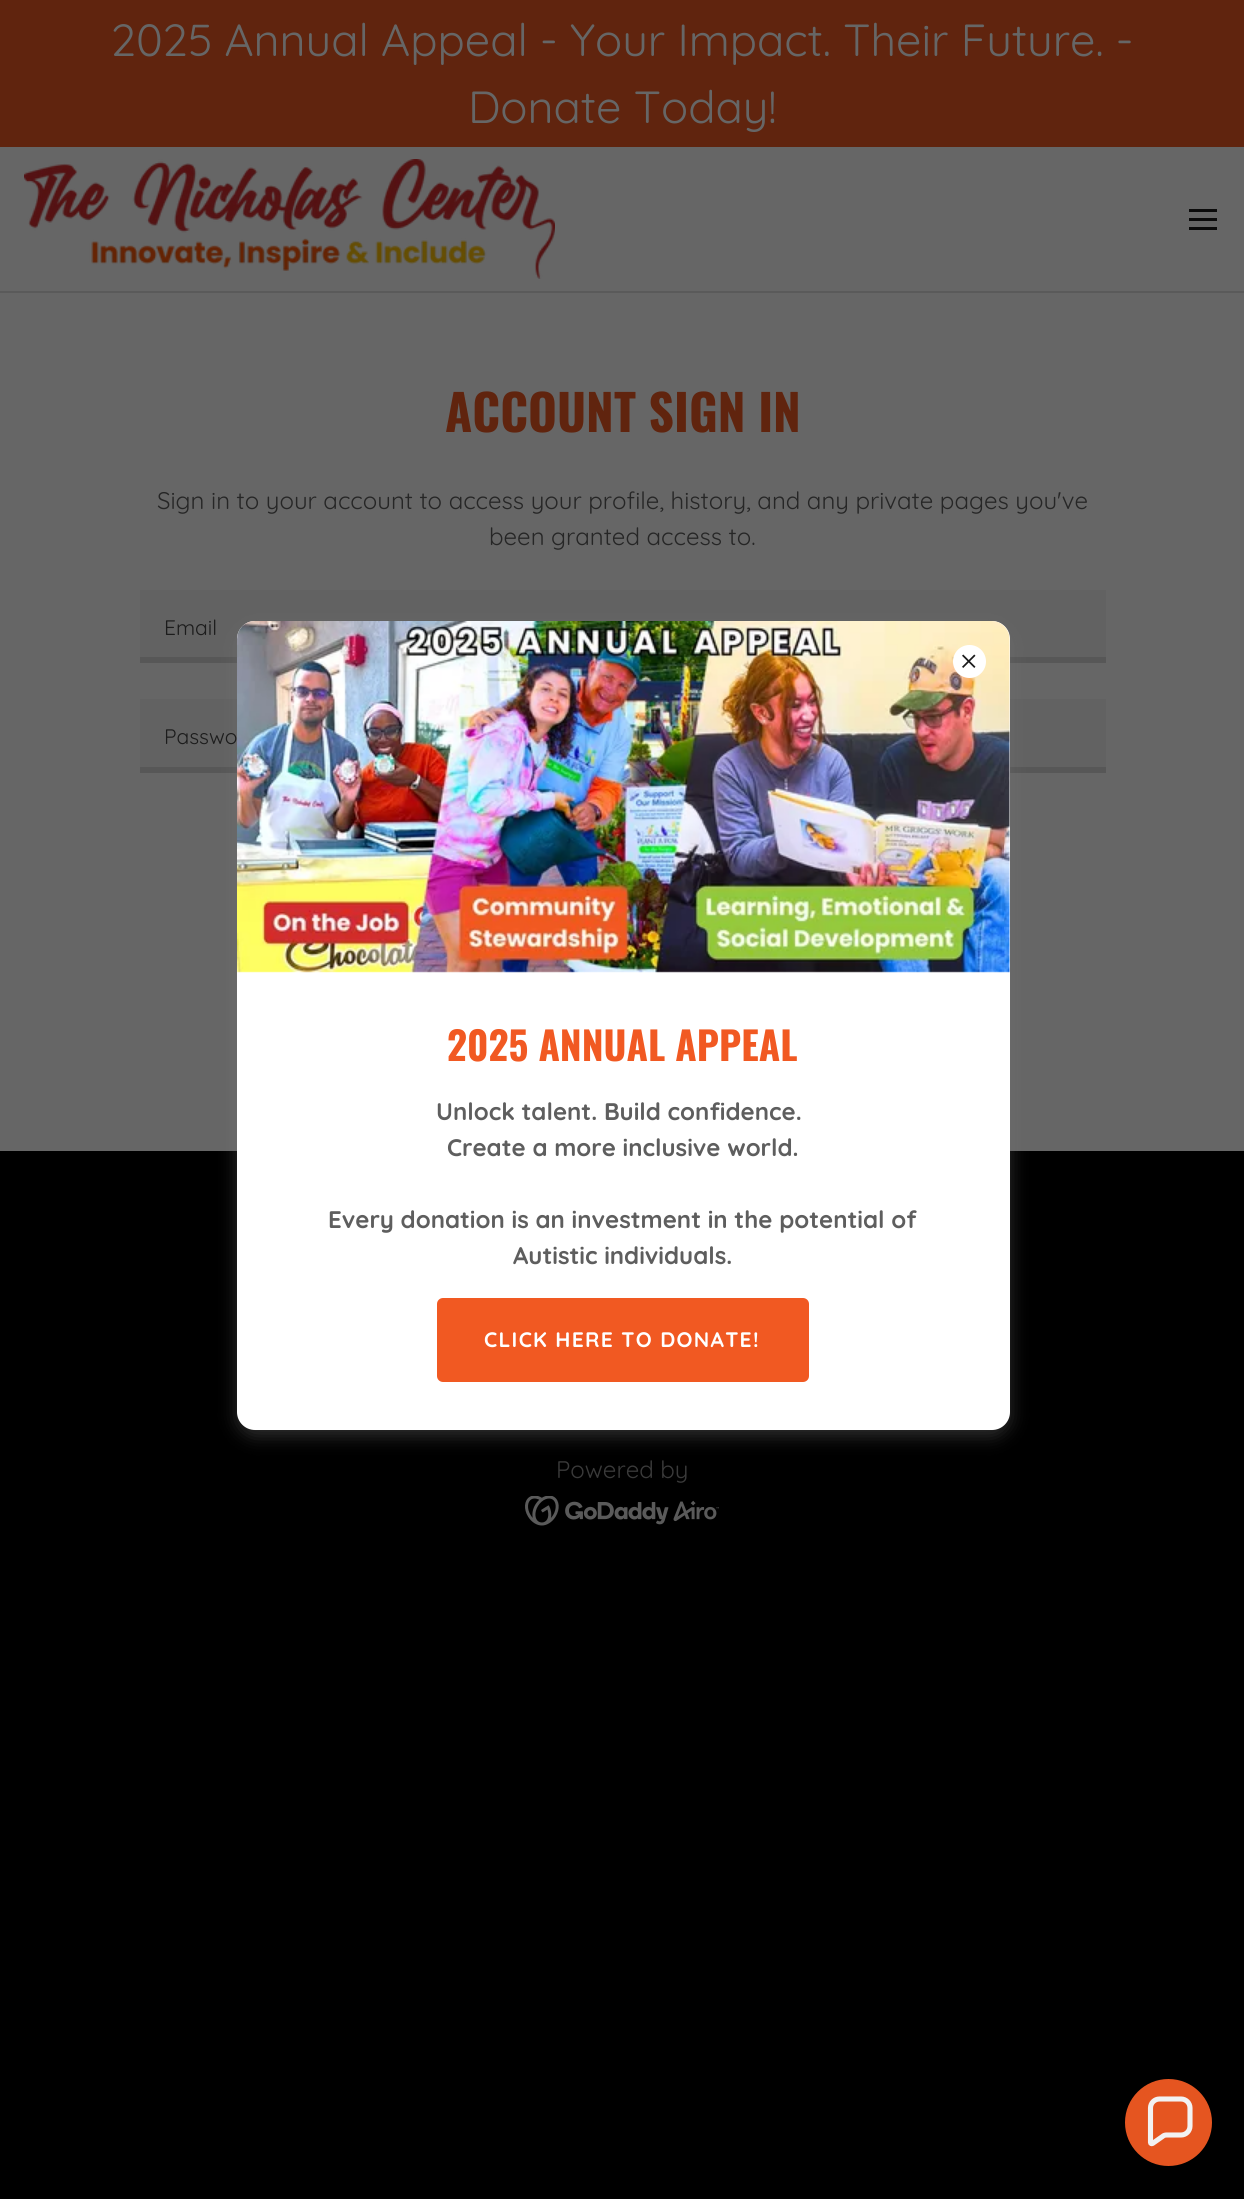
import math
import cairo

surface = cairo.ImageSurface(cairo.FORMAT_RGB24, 1244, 2199)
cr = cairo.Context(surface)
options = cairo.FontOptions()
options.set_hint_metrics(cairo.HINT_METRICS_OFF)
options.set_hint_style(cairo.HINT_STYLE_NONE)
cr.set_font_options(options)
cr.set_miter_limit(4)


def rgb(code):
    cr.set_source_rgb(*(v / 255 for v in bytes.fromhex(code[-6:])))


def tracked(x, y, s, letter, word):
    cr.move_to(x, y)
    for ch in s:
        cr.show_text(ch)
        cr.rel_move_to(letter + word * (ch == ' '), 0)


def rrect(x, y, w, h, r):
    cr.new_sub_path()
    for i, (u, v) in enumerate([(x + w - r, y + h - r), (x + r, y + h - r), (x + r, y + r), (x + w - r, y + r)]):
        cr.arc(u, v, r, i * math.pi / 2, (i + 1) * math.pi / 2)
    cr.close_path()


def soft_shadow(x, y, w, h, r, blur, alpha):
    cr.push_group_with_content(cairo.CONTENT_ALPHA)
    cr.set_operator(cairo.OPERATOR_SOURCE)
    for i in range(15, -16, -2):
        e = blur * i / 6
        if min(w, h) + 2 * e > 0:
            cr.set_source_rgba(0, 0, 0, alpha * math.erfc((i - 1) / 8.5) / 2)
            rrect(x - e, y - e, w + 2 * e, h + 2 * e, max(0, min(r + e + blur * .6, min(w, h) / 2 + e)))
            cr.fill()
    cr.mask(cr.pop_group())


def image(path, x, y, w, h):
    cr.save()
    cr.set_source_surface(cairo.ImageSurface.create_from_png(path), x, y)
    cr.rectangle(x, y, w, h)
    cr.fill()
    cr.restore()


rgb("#000000")
cr.paint()
rgb("#666666")
cr.rectangle(0, 147, 1244, 144)
cr.fill()
rgb("#60240e")
cr.rectangle(0, 0, 1244, 147)
cr.fill()
image("img/1.png", 24, 159, 531, 120)
for x, y, w, h, color in [
    (1189, 209, 28, 3, "#0b0b0b"),
    (1189, 218, 28, 3, "#0b0b0b"),
    (1189, 227, 28, 3, "#0b0b0b"),
    (0, 291, 1244, 2, "#5a5a5a"),
    (0, 293, 1244, 858, "#666666"),
    (140, 590, 966, 67, "#626262"),
    (140, 657, 966, 6, "#575757"),
    (140, 699, 966, 68, "#626262"),
    (140, 767, 966, 6, "#575757"),
]:
    rgb(color)
    cr.rectangle(x, y, w, h)
    cr.fill()
rgb("#757575")
soft_shadow(237, 627, 773, 809, 18, 9, 0.4)
rgb("#ffffff")
rrect(237, 621, 773, 809, 18)
cr.fill()
image("img/3.png", 237, 621, 773, 352)
cr.arc(969.5, 661.5, 16.5, 0, 2 * math.pi)
cr.fill()
image("img/2.png", 962, 654, 14, 14)
rgb("#f15922")
rrect(437, 1298, 372, 84, 6)
cr.fill()
image("img/4.png", 525, 1496, 194, 30)
rgb("#e55520")
cr.arc(1168.5, 2122.5, 43.5, 0, 2 * math.pi)
cr.fill()
cr.new_path()
cr.move_to(1181, 2099)
cr.line_to(1159.5, 2099)
cr.curve_to(1154.5, 2099, 1150.5, 2103, 1150.5, 2108)
cr.line_to(1150.5, 2142.5)
cr.curve_to(1150.5, 2143.5, 1151.5, 2144, 1152.5, 2143.5)
cr.line_to(1162.5, 2136.5)
cr.curve_to(1163.5, 2135.5, 1165, 2135, 1166.5, 2135)
cr.line_to(1181, 2135)
cr.curve_to(1186, 2135, 1190, 2131, 1190, 2126)
cr.line_to(1190, 2108)
cr.curve_to(1190, 2103, 1186, 2099, 1181, 2099)
cr.close_path()
rgb("#f2f2f2")
cr.set_line_width(5.1)
cr.stroke()
cr.select_font_face("Quicksand")
cr.set_font_size(45)
rgb("#666666")
cr.move_to(111, 56)
cr.show_text("2025 Annual Appeal - Your Impact. Their Future. -")
cr.move_to(468, 123)
cr.show_text("Donate Today!")
cr.select_font_face("Oswald", cairo.FONT_SLANT_NORMAL, cairo.FONT_WEIGHT_BOLD)
cr.set_font_size(49.5)
rgb("#60240e")
cr.move_to(445, 432)
cr.show_text("ACCOUNT SIGN IN")
cr.select_font_face("Quicksand")
cr.set_font_size(24)
rgb("#262626")
cr.move_to(157, 509)
cr.show_text("Sign in to your account to access your profile, history, and any private pages you've")
cr.move_to(489, 545)
cr.show_text("been granted access to.")
cr.set_font_size(21)
rgb("#1c1c1c")
cr.move_to(164, 635)
cr.show_text("Email")
cr.move_to(164, 744)
cr.show_text("Passwo")
cr.select_font_face("Oswald", cairo.FONT_SLANT_NORMAL, cairo.FONT_WEIGHT_BOLD)
cr.set_font_size(39)
rgb("#f15922")
cr.move_to(447, 1061)
cr.show_text("2025 ANNUAL APPEAL")
cr.select_font_face("Quicksand", cairo.FONT_SLANT_NORMAL, cairo.FONT_WEIGHT_BOLD)
cr.set_font_size(24)
rgb("#5e5e5e")
for x, y, s in [
    (436, 1120, "Unlock talent. Build confidence."),
    (447, 1156, "Create a more inclusive world."),
    (328, 1228, "Every donation is an investment in the potential of"),
    (513, 1264, "Autistic individuals."),
]:
    cr.move_to(x, y)
    cr.show_text(s)
cr.set_font_size(21)
rgb("#ffffff")
tracked(484, 1347, "CLICK HERE TO DONATE!", 1.3, 0)
cr.select_font_face("Quicksand")
cr.set_font_size(24)
rgb("#3a3a3a")
cr.move_to(556, 1478)
cr.show_text("Powered by")
surface.write_to_png("page.png")
